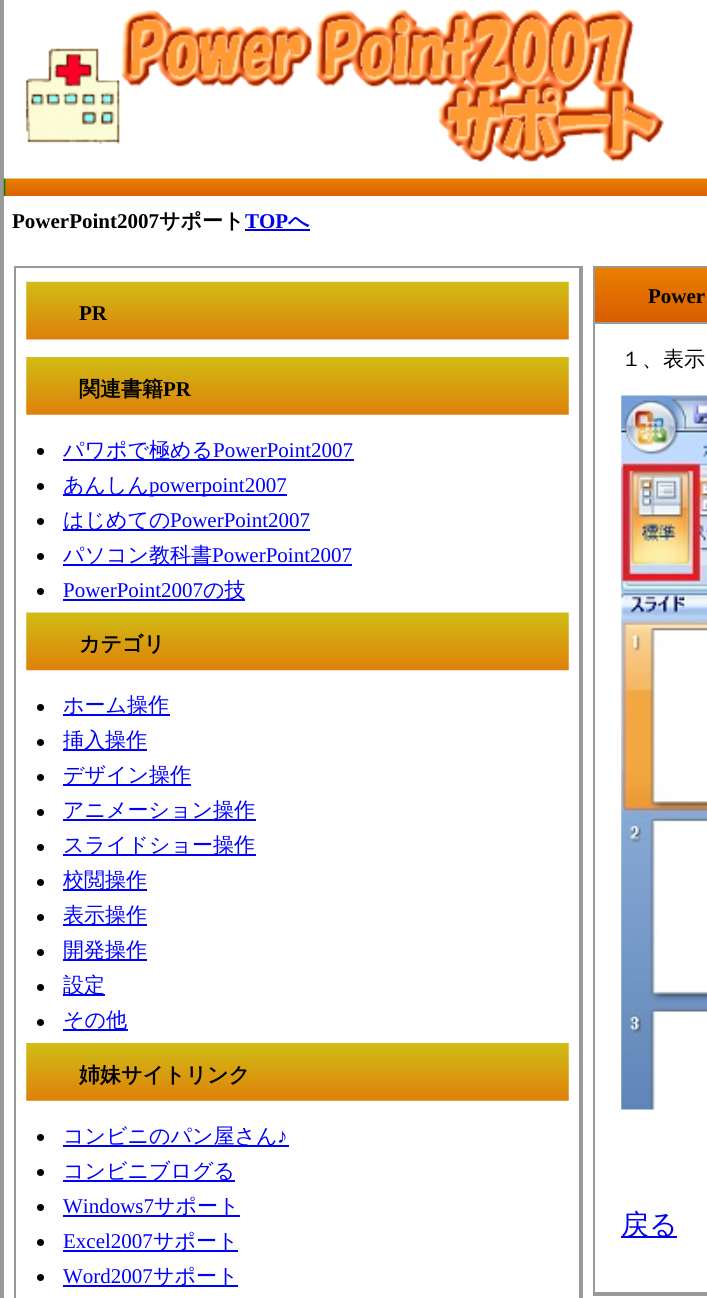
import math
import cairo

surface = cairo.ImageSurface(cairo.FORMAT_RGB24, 707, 1298)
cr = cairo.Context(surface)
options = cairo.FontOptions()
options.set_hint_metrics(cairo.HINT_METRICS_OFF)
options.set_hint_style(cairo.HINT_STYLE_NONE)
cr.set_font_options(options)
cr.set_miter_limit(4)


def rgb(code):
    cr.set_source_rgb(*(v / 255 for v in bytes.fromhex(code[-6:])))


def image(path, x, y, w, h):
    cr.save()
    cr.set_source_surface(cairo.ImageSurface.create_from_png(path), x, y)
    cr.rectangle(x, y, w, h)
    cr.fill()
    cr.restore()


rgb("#999999")
cr.paint()
rgb("#ffffff")
cr.rectangle(4, 0, 703, 1298)
cr.fill()
image("img/1.png", 25, 8, 639, 155)
image("img/2.png", 3, 178, 704, 18)
for x, y, w, h, color in [
    (245, 229, 65, 2, "#0000ee"),
    (14, 266, 569, 2, "#999999"),
    (579, 266, 4, 1032, "#999999"),
    (14, 266, 2, 1032, "#999999"),
]:
    rgb(color)
    cr.rectangle(x, y, w, h)
    cr.fill()
image("img/3.png", 26, 281, 543, 59)
image("img/4.png", 26, 357, 543, 58)
rgb("#000000")
cr.arc(40.5, 451.5, 3.5, 0, 2 * math.pi)
cr.fill()
rgb("#0000ff")
cr.rectangle(63, 459, 291, 2)
cr.fill()
rgb("#000000")
cr.arc(40.5, 486.5, 3.5, 0, 2 * math.pi)
cr.fill()
rgb("#0000ff")
cr.rectangle(63, 494, 224, 2)
cr.fill()
rgb("#000000")
cr.arc(40.5, 521.5, 3.5, 0, 2 * math.pi)
cr.fill()
rgb("#0000ff")
cr.rectangle(63, 529, 247, 2)
cr.fill()
rgb("#000000")
cr.arc(40.5, 556.5, 3.5, 0, 2 * math.pi)
cr.fill()
rgb("#0000ff")
cr.rectangle(63, 564, 289, 2)
cr.fill()
rgb("#000000")
cr.arc(40.5, 591.5, 3.5, 0, 2 * math.pi)
cr.fill()
rgb("#0000ff")
cr.rectangle(63, 599, 182, 2)
cr.fill()
image("img/5.png", 26, 612, 543, 59)
rgb("#000000")
cr.arc(40.5, 707.5, 3.5, 0, 2 * math.pi)
cr.fill()
rgb("#0000ff")
cr.rectangle(63, 714, 107, 2)
cr.fill()
rgb("#000000")
cr.arc(40.5, 742.5, 3.5, 0, 2 * math.pi)
cr.fill()
rgb("#0000ff")
cr.rectangle(63, 749, 84, 2)
cr.fill()
rgb("#000000")
cr.arc(40.5, 777.5, 3.5, 0, 2 * math.pi)
cr.fill()
rgb("#0000ff")
cr.rectangle(63, 784, 128, 2)
cr.fill()
rgb("#000000")
cr.arc(40.5, 812.5, 3.5, 0, 2 * math.pi)
cr.fill()
rgb("#0000ff")
cr.rectangle(63, 819, 193, 2)
cr.fill()
rgb("#000000")
cr.arc(40.5, 847.5, 3.5, 0, 2 * math.pi)
cr.fill()
rgb("#0000ff")
cr.rectangle(63, 854, 193, 2)
cr.fill()
rgb("#000000")
cr.arc(40.5, 882.5, 3.5, 0, 2 * math.pi)
cr.fill()
rgb("#0000ff")
cr.rectangle(63, 889, 84, 2)
cr.fill()
rgb("#000000")
cr.arc(40.5, 917.5, 3.5, 0, 2 * math.pi)
cr.fill()
rgb("#0000ff")
cr.rectangle(63, 924, 84, 2)
cr.fill()
rgb("#000000")
cr.arc(40.5, 952.5, 3.5, 0, 2 * math.pi)
cr.fill()
rgb("#0000ff")
cr.rectangle(63, 959, 84, 2)
cr.fill()
rgb("#000000")
cr.arc(40.5, 987.5, 3.5, 0, 2 * math.pi)
cr.fill()
rgb("#0000ff")
cr.rectangle(63, 994, 42, 2)
cr.fill()
rgb("#000000")
cr.arc(40.5, 1022.5, 3.5, 0, 2 * math.pi)
cr.fill()
rgb("#0000ff")
cr.rectangle(63, 1029, 65, 2)
cr.fill()
image("img/4.png", 26, 1043, 543, 58)
rgb("#000000")
cr.arc(40.5, 1137.5, 3.5, 0, 2 * math.pi)
cr.fill()
rgb("#0000ff")
cr.rectangle(63, 1145, 226, 2)
cr.fill()
rgb("#000000")
cr.arc(40.5, 1172.5, 3.5, 0, 2 * math.pi)
cr.fill()
rgb("#0000ff")
cr.rectangle(63, 1180, 172, 2)
cr.fill()
rgb("#000000")
cr.arc(40.5, 1207.5, 3.5, 0, 2 * math.pi)
cr.fill()
rgb("#0000ff")
cr.rectangle(63, 1215, 177, 2)
cr.fill()
rgb("#000000")
cr.arc(40.5, 1242.5, 3.5, 0, 2 * math.pi)
cr.fill()
rgb("#0000ff")
cr.rectangle(63, 1250, 175, 2)
cr.fill()
rgb("#000000")
cr.arc(40.5, 1277.5, 3.5, 0, 2 * math.pi)
cr.fill()
for x, y, w, h, color in [
    (63, 1285, 175, 2, "#0000ff"),
    (593, 266, 114, 2, "#999999"),
    (593, 1292, 114, 4, "#999999"),
    (593, 266, 2, 1029, "#999999"),
]:
    rgb(color)
    cr.rectangle(x, y, w, h)
    cr.fill()
image("img/6.png", 595, 267, 112, 55)
cr.rectangle(595, 322, 112, 2)
cr.fill()
image("img/7.png", 621, 395, 86, 715)
rgb("#0000ee")
cr.rectangle(621, 1236, 56, 2)
cr.fill()
cr.select_font_face("Liberation Serif", cairo.FONT_SLANT_NORMAL, cairo.FONT_WEIGHT_BOLD)
cr.set_font_size(21)
rgb("#000000")
cr.move_to(12, 228)
cr.show_text("PowerPoint2007")
cr.select_font_face("WenQuanYi Zen Hei", cairo.FONT_SLANT_NORMAL, cairo.FONT_WEIGHT_BOLD)
cr.move_to(159, 228)
cr.show_text("サポート")
cr.select_font_face("Liberation Serif", cairo.FONT_SLANT_NORMAL, cairo.FONT_WEIGHT_BOLD)
rgb("#0000ee")
cr.move_to(245, 228)
cr.show_text("TOP")
cr.select_font_face("WenQuanYi Zen Hei", cairo.FONT_SLANT_NORMAL, cairo.FONT_WEIGHT_BOLD)
cr.move_to(288, 228)
cr.show_text("へ")
cr.select_font_face("Liberation Serif", cairo.FONT_SLANT_NORMAL, cairo.FONT_WEIGHT_BOLD)
rgb("#000000")
cr.move_to(79, 320)
cr.show_text("PR")
cr.select_font_face("WenQuanYi Zen Hei", cairo.FONT_SLANT_NORMAL, cairo.FONT_WEIGHT_BOLD)
cr.move_to(79, 396)
cr.show_text("関連書籍")
cr.select_font_face("Liberation Serif", cairo.FONT_SLANT_NORMAL, cairo.FONT_WEIGHT_BOLD)
cr.move_to(163, 396)
cr.show_text("PR")
cr.select_font_face("WenQuanYi Zen Hei Medium")
rgb("#0000ff")
cr.move_to(63, 457)
cr.show_text("パワポで極める")
cr.select_font_face("Liberation Serif")
cr.move_to(213, 457)
cr.show_text("PowerPoint2007")
cr.select_font_face("WenQuanYi Zen Hei Medium")
cr.move_to(63, 492)
cr.show_text("あんしん")
cr.select_font_face("Liberation Serif")
cr.move_to(149, 492)
cr.show_text("powerpoint2007")
cr.select_font_face("WenQuanYi Zen Hei Medium")
cr.move_to(63, 527)
cr.show_text("はじめての")
cr.select_font_face("Liberation Serif")
cr.move_to(170, 527)
cr.show_text("PowerPoint2007")
cr.select_font_face("WenQuanYi Zen Hei Medium")
cr.move_to(63, 562)
cr.show_text("パソコン教科書")
cr.select_font_face("Liberation Serif")
cr.move_to(212, 562)
cr.show_text("PowerPoint2007")
cr.move_to(63, 597)
cr.show_text("PowerPoint2007")
cr.select_font_face("WenQuanYi Zen Hei Medium")
cr.move_to(203, 597)
cr.show_text("の技")
cr.select_font_face("WenQuanYi Zen Hei", cairo.FONT_SLANT_NORMAL, cairo.FONT_WEIGHT_BOLD)
rgb("#000000")
cr.move_to(79, 651)
cr.show_text("カテゴリ")
cr.select_font_face("WenQuanYi Zen Hei Medium")
rgb("#0000ff")
for x, y, s in [
    (63, 712, "ホーム操作"),
    (63, 747, "挿入操作"),
    (63, 782, "デザイン操作"),
    (63, 817, "アニメーション操作"),
    (63, 852, "スライドショー操作"),
    (63, 887, "校閲操作"),
    (63, 922, "表示操作"),
    (63, 957, "開発操作"),
    (63, 992, "設定"),
    (63, 1027, "その他"),
]:
    cr.move_to(x, y)
    cr.show_text(s)
cr.select_font_face("WenQuanYi Zen Hei", cairo.FONT_SLANT_NORMAL, cairo.FONT_WEIGHT_BOLD)
rgb("#000000")
cr.move_to(79, 1082)
cr.show_text("姉妹サイトリンク")
cr.select_font_face("WenQuanYi Zen Hei Medium")
rgb("#0000ff")
cr.move_to(63, 1143)
cr.show_text("コンビニのパン屋さん")
cr.select_font_face("Liberation Serif")
cr.move_to(277, 1143)
cr.show_text("♪")
cr.select_font_face("WenQuanYi Zen Hei Medium")
cr.move_to(63, 1178)
cr.show_text("コンビニブログる")
cr.select_font_face("Liberation Serif")
cr.move_to(63, 1213)
cr.show_text("Windows7")
cr.select_font_face("WenQuanYi Zen Hei Medium")
cr.move_to(154, 1213)
cr.show_text("サポート")
cr.select_font_face("Liberation Serif")
cr.move_to(63, 1248)
cr.show_text("Excel2007")
cr.select_font_face("WenQuanYi Zen Hei Medium")
cr.move_to(153, 1248)
cr.show_text("サポート")
cr.select_font_face("Liberation Serif")
cr.move_to(63, 1283)
cr.show_text("Word2007")
cr.select_font_face("WenQuanYi Zen Hei Medium")
cr.move_to(153, 1283)
cr.show_text("サポート")
cr.select_font_face("Liberation Serif", cairo.FONT_SLANT_NORMAL, cairo.FONT_WEIGHT_BOLD)
rgb("#000000")
cr.move_to(648, 303)
cr.show_text("Power")
cr.select_font_face("WenQuanYi Zen Hei Medium")
cr.move_to(621, 366)
cr.show_text("１、表示")
cr.set_font_size(28)
rgb("#0000ee")
cr.move_to(621, 1234)
cr.show_text("戻る")
surface.write_to_png("page.png")
